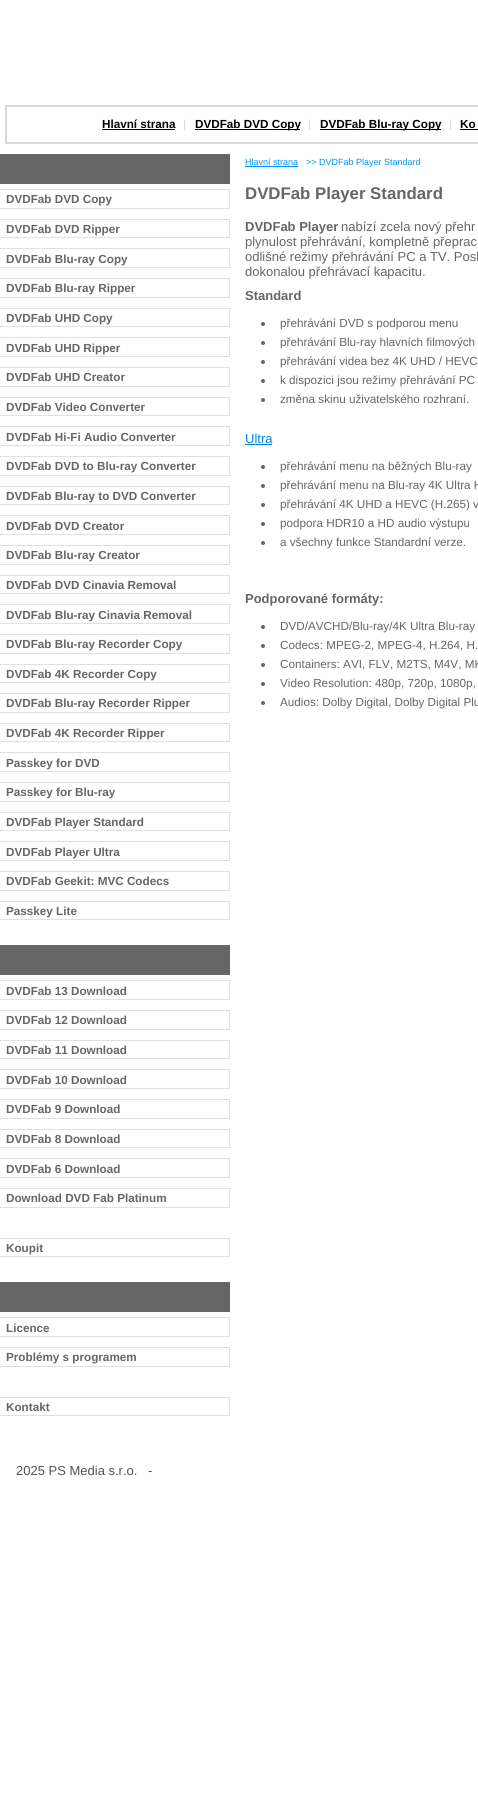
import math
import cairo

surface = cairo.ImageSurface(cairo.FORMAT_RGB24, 478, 1806)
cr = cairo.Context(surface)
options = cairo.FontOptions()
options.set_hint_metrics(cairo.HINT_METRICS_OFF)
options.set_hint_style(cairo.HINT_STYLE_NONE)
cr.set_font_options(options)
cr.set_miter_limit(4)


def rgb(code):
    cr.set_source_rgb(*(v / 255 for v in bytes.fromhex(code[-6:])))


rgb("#ffffff")
cr.paint()
cr.rectangle(6, 106, 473, 37)
rgb("#d9d9d9")
cr.stroke()
for x, y, w, h, color in [
    (102, 129, 73, 1, "#000000"),
    (195, 129, 105, 1, "#000000"),
    (320, 129, 121, 1, "#000000"),
    (460, 129, 18, 1, "#000000"),
    (0, 154, 230, 30, "#666666"),
    (0, 189, 230, 1, "#e1e1e1"),
    (229, 189, 1, 20, "#e1e1e1"),
    (0, 208, 230, 1, "#e1e1e1"),
    (0, 219, 230, 1, "#e1e1e1"),
    (229, 219, 1, 19, "#e1e1e1"),
    (0, 237, 230, 1, "#e1e1e1"),
    (0, 248, 230, 1, "#e1e1e1"),
    (229, 248, 1, 20, "#e1e1e1"),
    (0, 267, 230, 1, "#e1e1e1"),
    (0, 278, 230, 1, "#e1e1e1"),
    (229, 278, 1, 20, "#e1e1e1"),
    (0, 297, 230, 1, "#e1e1e1"),
    (0, 308, 230, 1, "#e1e1e1"),
    (229, 308, 1, 19, "#e1e1e1"),
    (0, 326, 230, 1, "#e1e1e1"),
    (0, 337, 230, 1, "#e1e1e1"),
    (229, 337, 1, 20, "#e1e1e1"),
    (0, 356, 230, 1, "#e1e1e1"),
    (0, 367, 230, 1, "#e1e1e1"),
    (229, 367, 1, 20, "#e1e1e1"),
    (0, 386, 230, 1, "#e1e1e1"),
    (0, 397, 230, 1, "#e1e1e1"),
    (229, 397, 1, 19, "#e1e1e1"),
    (0, 415, 230, 1, "#e1e1e1"),
    (0, 426, 230, 1, "#e1e1e1"),
    (229, 426, 1, 20, "#e1e1e1"),
    (0, 445, 230, 1, "#e1e1e1"),
    (0, 456, 230, 1, "#e1e1e1"),
    (229, 456, 1, 20, "#e1e1e1"),
    (0, 475, 230, 1, "#e1e1e1"),
    (0, 486, 230, 1, "#e1e1e1"),
    (229, 486, 1, 19, "#e1e1e1"),
    (0, 504, 230, 1, "#e1e1e1"),
    (0, 515, 230, 1, "#e1e1e1"),
    (229, 515, 1, 20, "#e1e1e1"),
    (0, 534, 230, 1, "#e1e1e1"),
    (0, 545, 230, 1, "#e1e1e1"),
    (229, 545, 1, 20, "#e1e1e1"),
    (0, 564, 230, 1, "#e1e1e1"),
    (0, 575, 230, 1, "#e1e1e1"),
    (229, 575, 1, 19, "#e1e1e1"),
    (0, 593, 230, 1, "#e1e1e1"),
    (0, 604, 230, 1, "#e1e1e1"),
    (229, 604, 1, 20, "#e1e1e1"),
    (0, 623, 230, 1, "#e1e1e1"),
    (0, 634, 230, 1, "#e1e1e1"),
    (229, 634, 1, 20, "#e1e1e1"),
    (0, 653, 230, 1, "#e1e1e1"),
    (0, 664, 230, 1, "#e1e1e1"),
    (229, 664, 1, 19, "#e1e1e1"),
    (0, 682, 230, 1, "#e1e1e1"),
    (0, 693, 230, 1, "#e1e1e1"),
    (229, 693, 1, 20, "#e1e1e1"),
    (0, 712, 230, 1, "#e1e1e1"),
    (0, 723, 230, 1, "#e1e1e1"),
    (229, 723, 1, 19, "#e1e1e1"),
    (0, 741, 230, 1, "#e1e1e1"),
    (0, 752, 230, 1, "#e1e1e1"),
    (229, 752, 1, 20, "#e1e1e1"),
    (0, 771, 230, 1, "#e1e1e1"),
    (0, 782, 230, 1, "#e1e1e1"),
    (229, 782, 1, 20, "#e1e1e1"),
    (0, 801, 230, 1, "#e1e1e1"),
    (0, 812, 230, 1, "#e1e1e1"),
    (229, 812, 1, 19, "#e1e1e1"),
    (0, 830, 230, 1, "#e1e1e1"),
    (0, 841, 230, 1, "#e1e1e1"),
    (229, 841, 1, 20, "#e1e1e1"),
    (0, 860, 230, 1, "#e1e1e1"),
    (0, 871, 230, 1, "#e1e1e1"),
    (229, 871, 1, 20, "#e1e1e1"),
    (0, 890, 230, 1, "#e1e1e1"),
    (0, 901, 230, 1, "#e1e1e1"),
    (229, 901, 1, 19, "#e1e1e1"),
    (0, 919, 230, 1, "#e1e1e1"),
    (0, 945, 230, 30, "#666666"),
    (0, 980, 230, 1, "#e1e1e1"),
    (229, 980, 1, 20, "#e1e1e1"),
    (0, 999, 230, 1, "#e1e1e1"),
    (0, 1010, 230, 1, "#e1e1e1"),
    (229, 1010, 1, 20, "#e1e1e1"),
    (0, 1029, 230, 1, "#e1e1e1"),
    (0, 1040, 230, 1, "#e1e1e1"),
    (229, 1040, 1, 19, "#e1e1e1"),
    (0, 1058, 230, 1, "#e1e1e1"),
    (0, 1069, 230, 1, "#e1e1e1"),
    (229, 1069, 1, 20, "#e1e1e1"),
    (0, 1088, 230, 1, "#e1e1e1"),
    (0, 1099, 230, 1, "#e1e1e1"),
    (229, 1099, 1, 20, "#e1e1e1"),
    (0, 1118, 230, 1, "#e1e1e1"),
    (0, 1129, 230, 1, "#e1e1e1"),
    (229, 1129, 1, 19, "#e1e1e1"),
    (0, 1147, 230, 1, "#e1e1e1"),
    (0, 1158, 230, 1, "#e1e1e1"),
    (229, 1158, 1, 20, "#e1e1e1"),
    (0, 1177, 230, 1, "#e1e1e1"),
    (0, 1188, 230, 1, "#e1e1e1"),
    (229, 1188, 1, 20, "#e1e1e1"),
    (0, 1207, 230, 1, "#e1e1e1"),
    (0, 1238, 230, 1, "#e1e1e1"),
    (229, 1238, 1, 19, "#e1e1e1"),
    (0, 1256, 230, 1, "#e1e1e1"),
    (0, 1282, 230, 30, "#666666"),
    (0, 1317, 230, 1, "#e1e1e1"),
    (229, 1317, 1, 20, "#e1e1e1"),
    (0, 1336, 230, 1, "#e1e1e1"),
    (0, 1347, 230, 1, "#e1e1e1"),
    (229, 1347, 1, 20, "#e1e1e1"),
    (0, 1366, 230, 1, "#e1e1e1"),
    (0, 1397, 230, 1, "#e1e1e1"),
    (229, 1397, 1, 19, "#e1e1e1"),
    (0, 1415, 230, 1, "#e1e1e1"),
    (245, 166, 53, 1, "#0093f7"),
]:
    rgb(color)
    cr.rectangle(x, y, w, h)
    cr.fill()
rgb("#666666")
cr.arc(263, 324, 2, 0, 2 * math.pi)
cr.fill()
cr.arc(263, 343, 2, 0, 2 * math.pi)
cr.fill()
cr.arc(263, 362, 2, 0, 2 * math.pi)
cr.fill()
cr.arc(263, 381, 2, 0, 2 * math.pi)
cr.fill()
cr.arc(263, 400, 2, 0, 2 * math.pi)
cr.fill()
rgb("#0085df")
cr.rectangle(245, 444, 27, 1)
cr.fill()
rgb("#666666")
cr.arc(263, 467, 2, 0, 2 * math.pi)
cr.fill()
cr.arc(263, 486, 2, 0, 2 * math.pi)
cr.fill()
cr.arc(263, 505, 2, 0, 2 * math.pi)
cr.fill()
cr.arc(263, 524, 2, 0, 2 * math.pi)
cr.fill()
cr.arc(263, 543, 2, 0, 2 * math.pi)
cr.fill()
cr.arc(263, 627, 2, 0, 2 * math.pi)
cr.fill()
cr.arc(263, 646, 2, 0, 2 * math.pi)
cr.fill()
cr.arc(263, 665, 2, 0, 2 * math.pi)
cr.fill()
cr.arc(263, 684, 2, 0, 2 * math.pi)
cr.fill()
cr.arc(263, 703, 2, 0, 2 * math.pi)
cr.fill()
cr.select_font_face("Liberation Sans", cairo.FONT_SLANT_NORMAL, cairo.FONT_WEIGHT_BOLD)
cr.set_font_size(11.7)
rgb("#000000")
cr.move_to(102, 128)
cr.show_text("Hlavní strana")
cr.select_font_face("Liberation Sans")
rgb("#d9d9d9")
cr.move_to(183, 128)
cr.show_text("|")
cr.select_font_face("Liberation Sans", cairo.FONT_SLANT_NORMAL, cairo.FONT_WEIGHT_BOLD)
rgb("#000000")
cr.move_to(195, 128)
cr.show_text("DVDFab DVD Copy")
cr.select_font_face("Liberation Sans")
rgb("#d9d9d9")
cr.move_to(308, 128)
cr.show_text("|")
cr.select_font_face("Liberation Sans", cairo.FONT_SLANT_NORMAL, cairo.FONT_WEIGHT_BOLD)
rgb("#000000")
cr.move_to(320, 128)
cr.show_text("DVDFab Blu-ray Copy")
cr.select_font_face("Liberation Sans")
rgb("#d9d9d9")
cr.move_to(449, 128)
cr.show_text("|")
cr.select_font_face("Liberation Sans", cairo.FONT_SLANT_NORMAL, cairo.FONT_WEIGHT_BOLD)
rgb("#000000")
cr.move_to(460, 128)
cr.show_text("Ko")
rgb("#666666")
for x, y, s in [
    (6, 203, "DVDFab DVD Copy"),
    (6, 233, "DVDFab DVD Ripper"),
    (6, 263, "DVDFab Blu-ray Copy"),
    (6, 292, "DVDFab Blu-ray Ripper"),
    (6, 322, "DVDFab UHD Copy"),
    (6, 352, "DVDFab UHD Ripper"),
    (6, 381, "DVDFab UHD Creator"),
    (6, 411, "DVDFab Video Converter"),
    (6, 441, "DVDFab Hi-Fi Audio Converter"),
    (6, 470, "DVDFab DVD to Blu-ray Converter"),
    (6, 500, "DVDFab Blu-ray to DVD Converter"),
    (6, 530, "DVDFab DVD Creator"),
    (6, 559, "DVDFab Blu-ray Creator"),
    (6, 589, "DVDFab DVD Cinavia Removal"),
    (6, 619, "DVDFab Blu-ray Cinavia Removal"),
    (6, 648, "DVDFab Blu-ray Recorder Copy"),
    (6, 678, "DVDFab 4K Recorder Copy"),
    (6, 707, "DVDFab Blu-ray Recorder Ripper"),
    (6, 737, "DVDFab 4K Recorder Ripper"),
    (6, 767, "Passkey for DVD"),
    (6, 796, "Passkey for Blu-ray"),
    (6, 826, "DVDFab Player Standard"),
    (6, 856, "DVDFab Player Ultra"),
    (6, 885, "DVDFab Geekit: MVC Codecs"),
    (6, 915, "Passkey Lite"),
    (6, 995, "DVDFab 13 Download"),
    (6, 1024, "DVDFab 12 Download"),
    (6, 1054, "DVDFab 11 Download"),
    (6, 1084, "DVDFab 10 Download"),
    (6, 1113, "DVDFab 9 Download"),
    (6, 1143, "DVDFab 8 Download"),
    (6, 1173, "DVDFab 6 Download"),
    (6, 1202, "Download DVD Fab Platinum"),
    (6, 1252, "Koupit"),
    (6, 1332, "Licence"),
    (6, 1361, "Problémy s programem"),
    (6, 1411, "Kontakt"),
]:
    cr.move_to(x, y)
    cr.show_text(s)
cr.select_font_face("Liberation Sans")
cr.set_font_size(9)
rgb("#0093f7")
cr.move_to(245, 165)
cr.show_text("Hlavní strana")
cr.move_to(306, 165)
cr.show_text(">> DVDFab Player Standard")
cr.select_font_face("Liberation Sans", cairo.FONT_SLANT_NORMAL, cairo.FONT_WEIGHT_BOLD)
cr.set_font_size(16.8)
rgb("#666666")
cr.move_to(245, 199)
cr.show_text("DVDFab Player Standard")
cr.set_font_size(13)
cr.move_to(245, 231)
cr.show_text("DVDFab Player")
cr.select_font_face("Liberation Sans")
for x, y, s in [
    (341, 231, "nabízí zcela nový přehr"),
    (245, 246, "plynulost přehrávání, kompletně přeprac"),
    (245, 261, "odlišné režimy přehrávání PC a TV. Posk"),
    (245, 276, "dokonalou přehrávací kapacitu."),
]:
    cr.move_to(x, y)
    cr.show_text(s)
cr.select_font_face("Liberation Sans", cairo.FONT_SLANT_NORMAL, cairo.FONT_WEIGHT_BOLD)
cr.move_to(245, 300)
cr.show_text("Standard")
cr.select_font_face("Liberation Sans")
cr.set_font_size(11.7)
for x, y, s in [
    (280, 327, "přehrávání DVD s podporou menu"),
    (280, 346, "přehrávání Blu-ray hlavních filmových"),
    (280, 365, "přehrávání videa bez 4K UHD / HEVC"),
    (280, 384, "k dispozici jsou režimy přehrávání PC"),
    (280, 403, "změna skinu uživatelského rozhraní."),
]:
    cr.move_to(x, y)
    cr.show_text(s)
cr.set_font_size(13)
rgb("#0085df")
cr.move_to(245, 443)
cr.show_text("Ultra")
cr.set_font_size(11.7)
rgb("#666666")
for x, y, s in [
    (280, 470, "přehrávání menu na běžných Blu-ray"),
    (280, 489, "přehrávání menu na Blu-ray 4K Ultra H"),
    (280, 508, "přehrávání 4K UHD a HEVC (H.265) v"),
    (280, 527, "podpora HDR10 a HD audio výstupu"),
    (280, 546, "a všechny funkce Standardní verze."),
]:
    cr.move_to(x, y)
    cr.show_text(s)
cr.select_font_face("Liberation Sans", cairo.FONT_SLANT_NORMAL, cairo.FONT_WEIGHT_BOLD)
cr.set_font_size(13)
cr.move_to(245, 603)
cr.show_text("Podporované formáty:")
cr.select_font_face("Liberation Sans")
cr.set_font_size(11.7)
for x, y, s in [
    (280, 630, "DVD/AVCHD/Blu-ray/4K Ultra Blu-ray"),
    (280, 649, "Codecs: MPEG-2, MPEG-4, H.264, H."),
    (280, 668, "Containers: AVI, FLV, M2TS, M4V, MK"),
    (280, 687, "Video Resolution: 480p, 720p, 1080p,"),
    (280, 706, "Audios: Dolby Digital, Dolby Digital Plu"),
]:
    cr.move_to(x, y)
    cr.show_text(s)
cr.set_font_size(13)
rgb("#535353")
cr.move_to(16, 1475)
cr.show_text("2025 PS Media s.r.o.")
cr.move_to(148, 1475)
cr.show_text("-")
surface.write_to_png("page.png")
